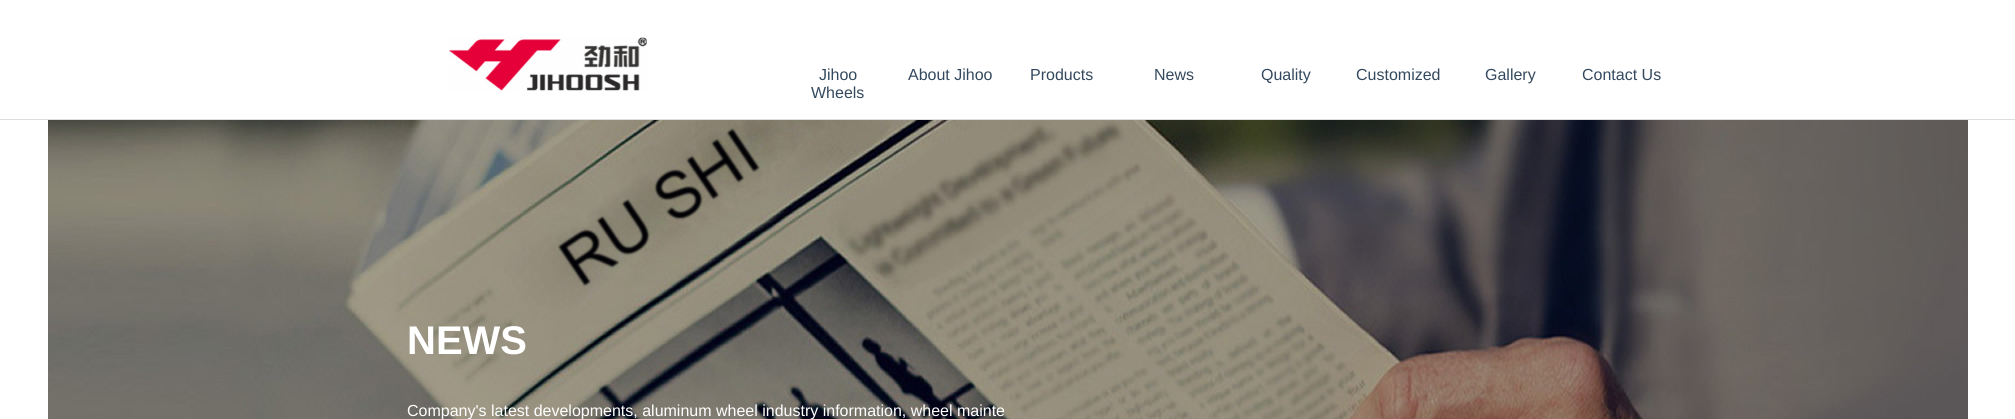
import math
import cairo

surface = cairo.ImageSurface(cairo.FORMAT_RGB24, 2015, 419)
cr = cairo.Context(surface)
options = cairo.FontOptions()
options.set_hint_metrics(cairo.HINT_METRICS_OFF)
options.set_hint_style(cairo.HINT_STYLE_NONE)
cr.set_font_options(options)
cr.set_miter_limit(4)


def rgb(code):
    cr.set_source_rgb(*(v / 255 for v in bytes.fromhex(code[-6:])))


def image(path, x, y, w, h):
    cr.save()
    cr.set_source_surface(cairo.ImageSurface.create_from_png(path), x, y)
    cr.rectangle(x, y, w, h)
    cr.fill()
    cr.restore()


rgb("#ffffff")
cr.paint()
rgb("#dddddd")
cr.rectangle(0, 119, 2015, 1)
cr.fill()
image("img/1.png", 449, 37, 198, 54)
image("img/2.png", 48, 120, 1920, 299)
cr.select_font_face("Liberation Sans")
cr.set_font_size(16)
rgb("#34495e")
for x, y, s in [
    (819, 80, "Jihoo"),
    (811, 98, "Wheels"),
    (908, 80, "About Jihoo"),
    (1030, 80, "Products"),
    (1154, 80, "News"),
    (1261, 80, "Quality"),
    (1356, 80, "Customized"),
    (1485, 80, "Gallery"),
    (1582, 80, "Contact Us"),
]:
    cr.move_to(x, y)
    cr.show_text(s)
cr.select_font_face("Liberation Sans", cairo.FONT_SLANT_NORMAL, cairo.FONT_WEIGHT_BOLD)
cr.set_font_size(40)
rgb("#ffffff")
cr.move_to(407, 354)
cr.show_text("NEWS")
cr.select_font_face("Liberation Sans")
cr.set_font_size(16)
cr.move_to(407, 416)
cr.show_text("Company's latest developments, aluminum wheel industry information, wheel mainte")
surface.write_to_png("page.png")
